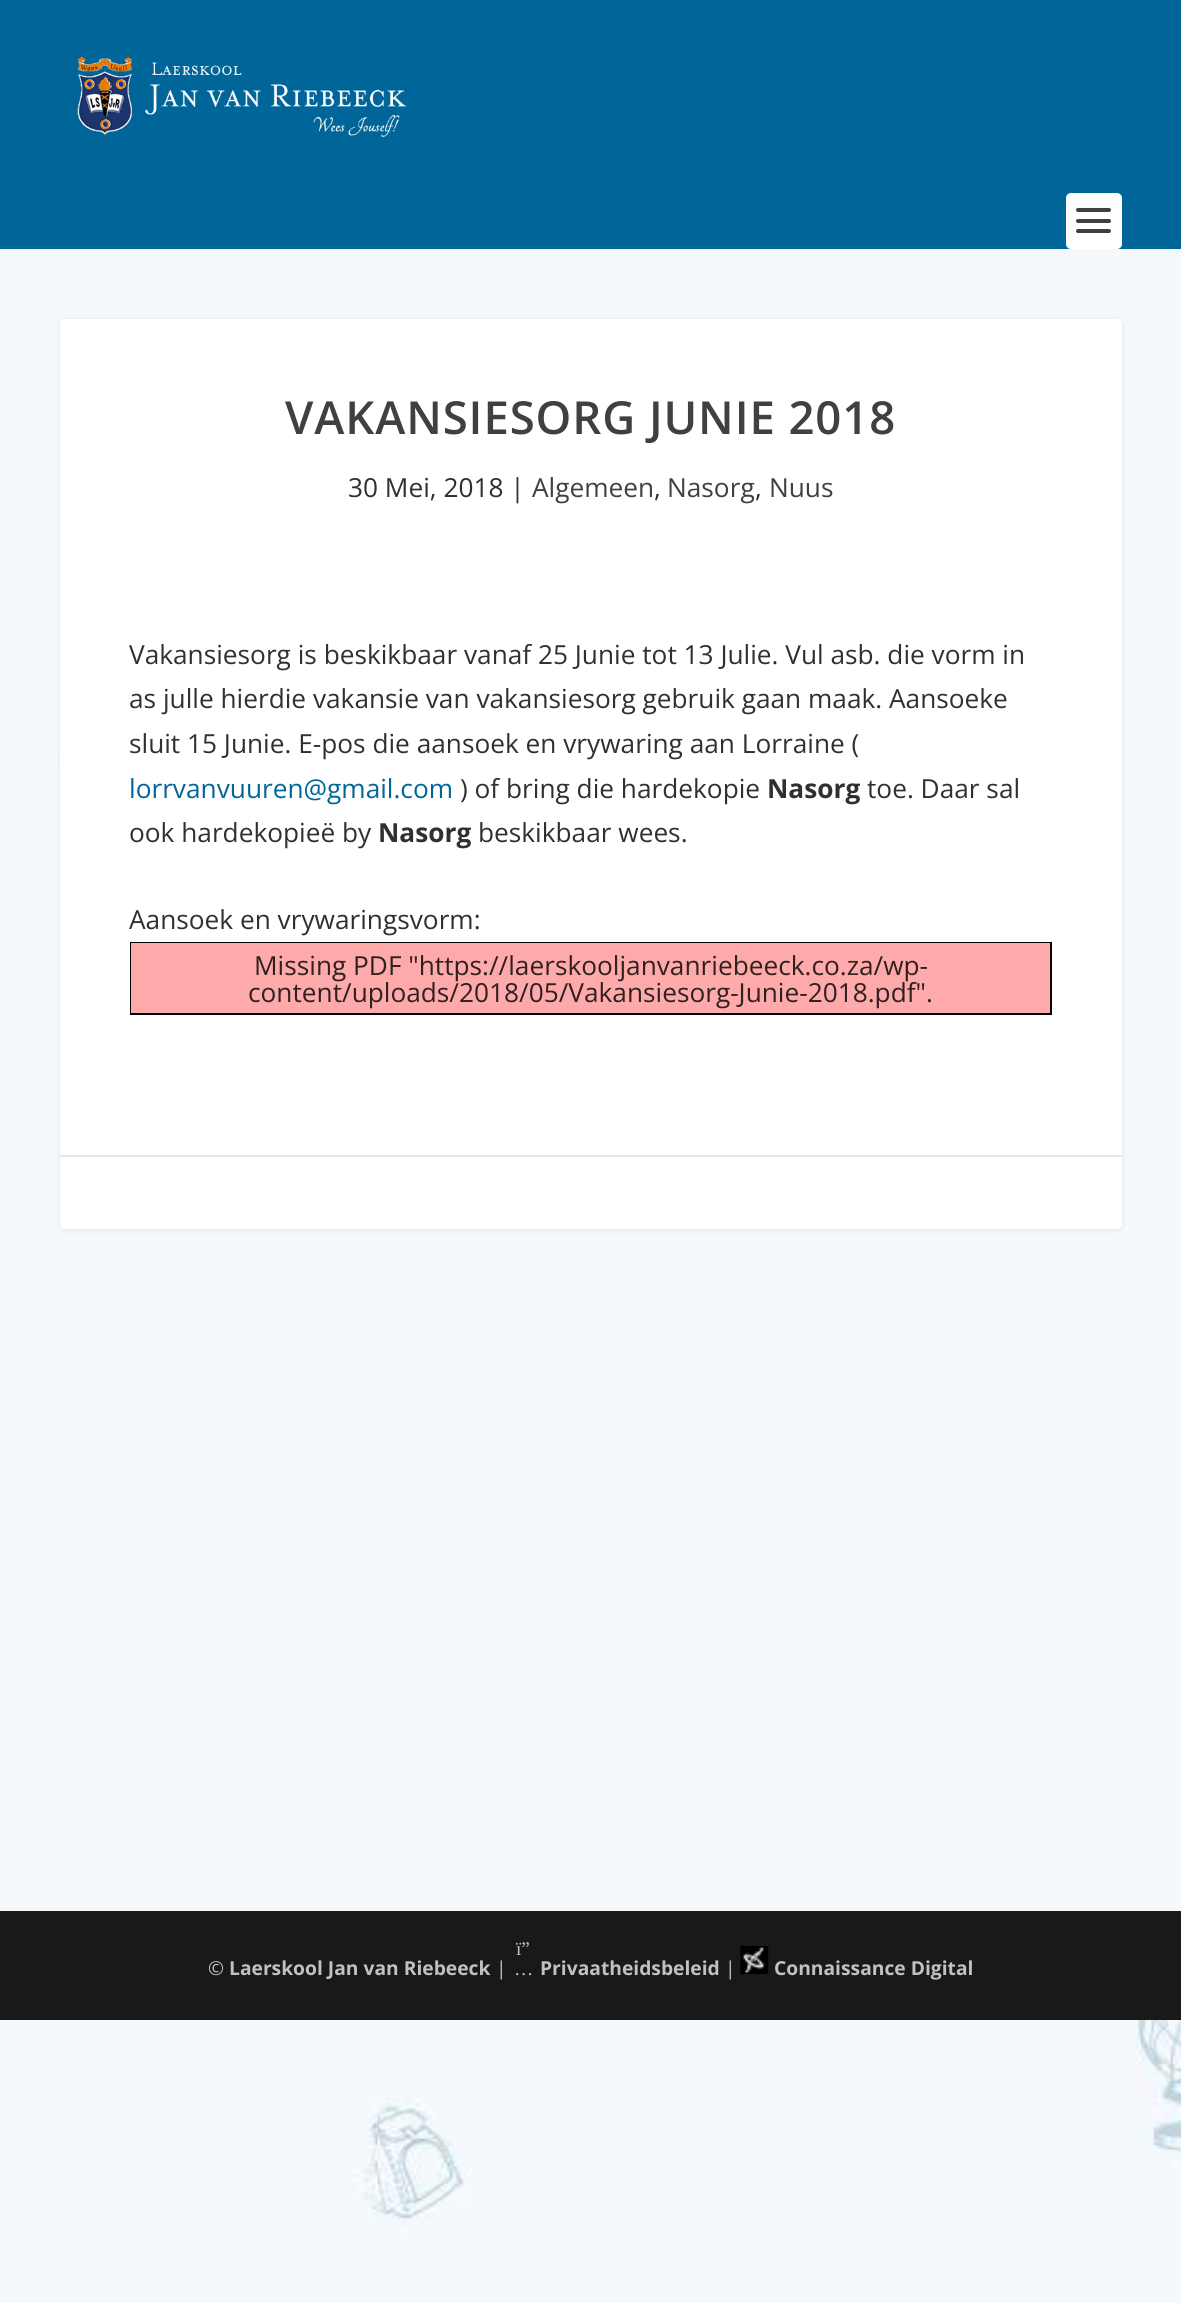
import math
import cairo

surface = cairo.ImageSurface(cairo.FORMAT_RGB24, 1181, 2303)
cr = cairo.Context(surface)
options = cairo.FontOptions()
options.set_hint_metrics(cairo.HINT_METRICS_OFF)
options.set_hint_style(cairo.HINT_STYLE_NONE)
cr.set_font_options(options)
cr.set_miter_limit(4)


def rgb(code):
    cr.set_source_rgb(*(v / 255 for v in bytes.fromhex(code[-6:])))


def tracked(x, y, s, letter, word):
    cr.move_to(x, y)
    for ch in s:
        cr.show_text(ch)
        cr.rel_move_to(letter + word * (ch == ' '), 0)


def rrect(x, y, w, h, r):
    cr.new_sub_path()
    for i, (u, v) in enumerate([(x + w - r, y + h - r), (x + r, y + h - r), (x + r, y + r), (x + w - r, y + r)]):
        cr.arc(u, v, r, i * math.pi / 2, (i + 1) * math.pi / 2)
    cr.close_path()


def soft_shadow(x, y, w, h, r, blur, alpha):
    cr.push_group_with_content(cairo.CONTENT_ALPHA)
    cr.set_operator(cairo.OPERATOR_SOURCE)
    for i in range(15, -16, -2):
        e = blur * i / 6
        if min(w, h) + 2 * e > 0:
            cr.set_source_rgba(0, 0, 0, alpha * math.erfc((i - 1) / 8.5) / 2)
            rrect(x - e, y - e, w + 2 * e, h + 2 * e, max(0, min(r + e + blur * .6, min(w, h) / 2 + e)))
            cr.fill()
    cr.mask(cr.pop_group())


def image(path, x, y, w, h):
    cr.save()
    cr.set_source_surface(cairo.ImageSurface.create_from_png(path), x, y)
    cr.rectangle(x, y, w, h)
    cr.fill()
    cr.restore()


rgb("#ffffff")
cr.paint()
image("img/1.png", 0, 249, 1181, 2054)
rgb("#006699")
cr.rectangle(0, 0, 1181, 249)
cr.fill()
image("img/2.png", 77, 57, 330, 80)
rgb("#ffffff")
rrect(1066, 193, 56, 56, 5)
cr.fill()
rgb("#404040")
rrect(1076, 208, 35, 4, 2)
cr.fill()
rrect(1076, 219, 35, 4, 2)
cr.fill()
rrect(1076, 229, 35, 4, 2)
cr.fill()
rgb("#000000")
soft_shadow(60, 320, 1062, 910, 5, 2.5, 0.1)
rgb("#ffffff")
rrect(60, 319, 1062, 910, 5)
cr.fill()
cr.rectangle(131, 943, 920, 71)
rgb("#000000")
cr.stroke()
for x, y, w, h, color in [
    (131, 943, 919, 70, "#ffaaaa"),
    (60, 1155, 1062, 2, "#e6e6e6"),
    (0, 1911, 1181, 109, "#191919"),
]:
    rgb(color)
    cr.rectangle(x, y, w, h)
    cr.fill()
image("img/3.png", 740, 1946, 29, 28)
cr.select_font_face("Open Sans SemiBold")
cr.set_font_size(45.5)
rgb("#404040")
tracked(285, 434, "VAKANSIESORG JUNIE 2018", 0.9, 0)
cr.select_font_face("Open Sans")
cr.set_font_size(26.25)
rgb("#303030")
cr.move_to(348, 497)
cr.show_text("30 Mei, 2018 |")
rgb("#404040")
cr.move_to(532, 497)
cr.show_text("Algemeen")
rgb("#303030")
cr.move_to(654, 497)
cr.show_text(",")
rgb("#404040")
cr.move_to(667, 497)
cr.show_text("Nasorg")
rgb("#303030")
cr.move_to(755, 497)
cr.show_text(",")
rgb("#404040")
cr.move_to(769, 497)
cr.show_text("Nuus")
rgb("#303030")
for x, y, s in [
    (129, 664, "Vakansiesorg is beskikbaar vanaf 25 Junie tot 13 Julie. Vul asb. die vorm in"),
    (129, 708, "as julle hierdie vakansie van vakansiesorg gebruik gaan maak. Aansoeke"),
    (129, 753, "sluit 15 Junie. E-pos die aansoek en vrywaring aan Lorraine ("),
]:
    cr.move_to(x, y)
    cr.show_text(s)
rgb("#006699")
cr.move_to(129, 798)
cr.show_text("lorrvanvuuren@gmail.com")
rgb("#303030")
cr.move_to(460, 798)
cr.show_text(") of bring die hardekopie")
cr.select_font_face("Open Sans", cairo.FONT_SLANT_NORMAL, cairo.FONT_WEIGHT_BOLD)
cr.move_to(767, 798)
cr.show_text("Nasorg")
cr.select_font_face("Open Sans")
cr.move_to(867, 798)
cr.show_text("toe. Daar sal")
cr.move_to(129, 842)
cr.show_text("ook hardekopieë by")
cr.select_font_face("Open Sans", cairo.FONT_SLANT_NORMAL, cairo.FONT_WEIGHT_BOLD)
cr.move_to(378, 842)
cr.show_text("Nasorg")
cr.select_font_face("Open Sans")
cr.move_to(478, 842)
cr.show_text("beskikbaar wees.")
cr.move_to(129, 929)
cr.show_text("Aansoek en vrywaringsvorm:")
rgb("#302020")
cr.move_to(254, 975)
cr.show_text("Missing PDF \"https://laerskooljanvanriebeeck.co.za/wp-")
cr.move_to(248, 1002)
cr.show_text("content/uploads/2018/05/Vakansiesorg-Junie-2018.pdf\".")
cr.set_font_size(19.25)
rgb("#c1c1c1")
cr.move_to(208, 1975)
cr.show_text("©")
cr.select_font_face("Open Sans", cairo.FONT_SLANT_NORMAL, cairo.FONT_WEIGHT_BOLD)
cr.move_to(229, 1975)
cr.show_text("Laerskool Jan van Riebeeck")
cr.select_font_face("Open Sans")
cr.move_to(496, 1975)
cr.show_text("|")
cr.select_font_face("Liberation Serif")
cr.move_to(516, 1955)
cr.show_text("ï”")
cr.move_to(514, 1975)
cr.show_text("…")
cr.select_font_face("Open Sans", cairo.FONT_SLANT_NORMAL, cairo.FONT_WEIGHT_BOLD)
cr.move_to(540, 1975)
cr.show_text("Privaatheidsbeleid")
cr.select_font_face("Open Sans")
cr.move_to(725, 1975)
cr.show_text("|")
cr.select_font_face("Open Sans", cairo.FONT_SLANT_NORMAL, cairo.FONT_WEIGHT_BOLD)
cr.move_to(774, 1975)
cr.show_text("Connaissance Digital")
surface.write_to_png("page.png")
